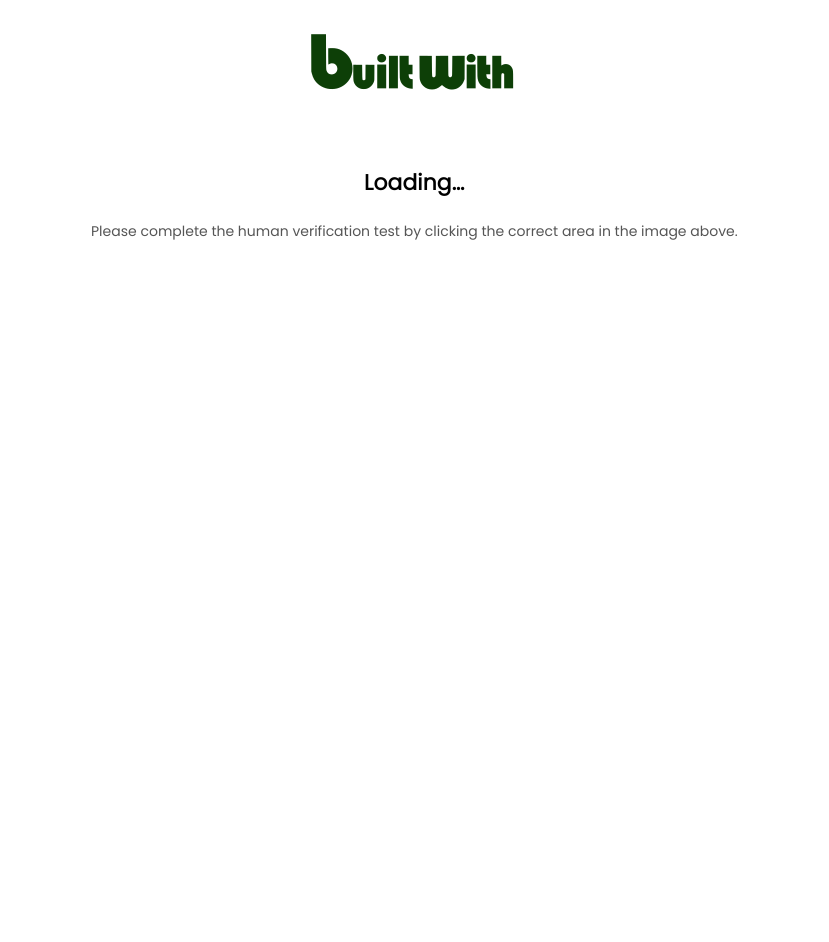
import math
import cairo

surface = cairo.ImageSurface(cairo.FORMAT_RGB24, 829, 942)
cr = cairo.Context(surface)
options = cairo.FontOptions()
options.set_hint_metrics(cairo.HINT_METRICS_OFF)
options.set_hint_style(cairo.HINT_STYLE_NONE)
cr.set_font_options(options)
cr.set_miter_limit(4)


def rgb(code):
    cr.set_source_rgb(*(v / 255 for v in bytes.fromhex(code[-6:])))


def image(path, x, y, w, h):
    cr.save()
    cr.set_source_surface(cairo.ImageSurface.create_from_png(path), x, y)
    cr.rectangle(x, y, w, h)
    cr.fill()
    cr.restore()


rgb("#ffffff")
cr.paint()
image("img/1.png", 311, 34, 203, 56)
cr.select_font_face("Poppins", cairo.FONT_SLANT_NORMAL, cairo.FONT_WEIGHT_BOLD)
cr.set_font_size(22)
rgb("#000000")
cr.move_to(364, 190)
cr.show_text("Loading…")
cr.select_font_face("Poppins")
cr.set_font_size(14)
rgb("#555555")
cr.move_to(91, 236)
cr.show_text("Please complete the human verification test by clicking the correct area in the image above.")
surface.write_to_png("page.png")
